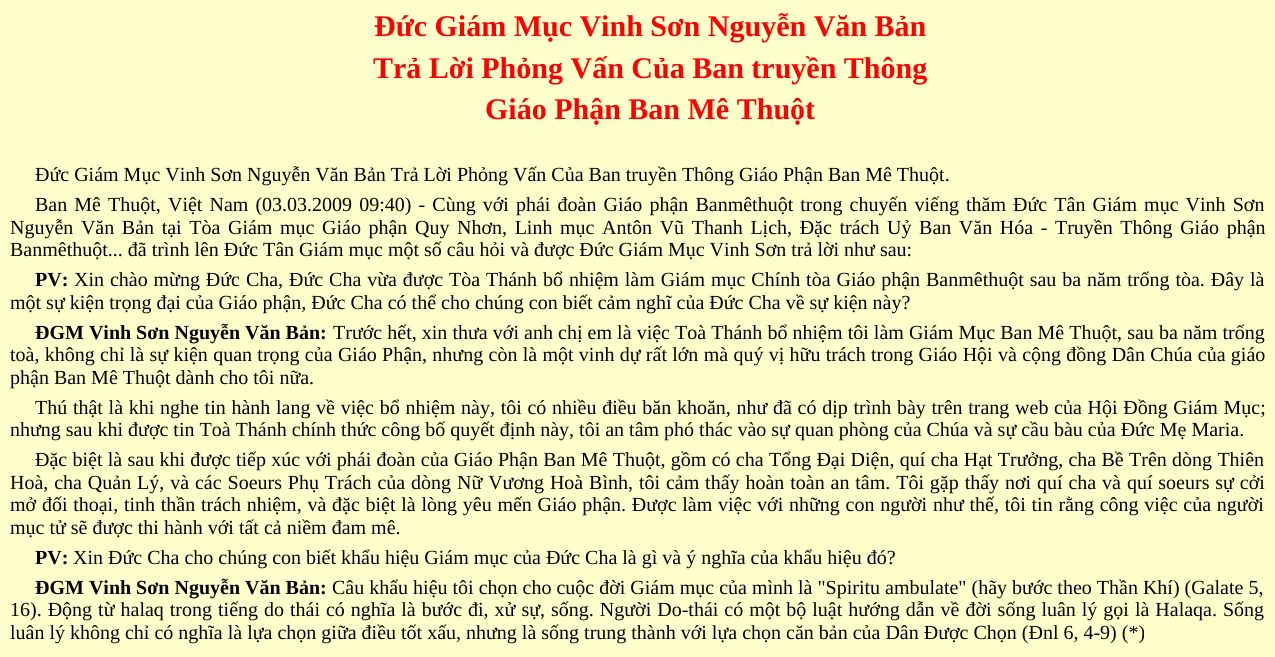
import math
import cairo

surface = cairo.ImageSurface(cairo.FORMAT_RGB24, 1275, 657)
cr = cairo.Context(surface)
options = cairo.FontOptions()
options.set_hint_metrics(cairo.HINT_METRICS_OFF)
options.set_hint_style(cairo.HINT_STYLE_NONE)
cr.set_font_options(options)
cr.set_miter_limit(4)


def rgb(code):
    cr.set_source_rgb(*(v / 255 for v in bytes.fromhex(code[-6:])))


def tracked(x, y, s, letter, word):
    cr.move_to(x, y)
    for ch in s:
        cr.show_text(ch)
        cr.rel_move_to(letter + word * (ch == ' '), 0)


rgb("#ffffcc")
cr.paint()
cr.select_font_face("Liberation Serif", cairo.FONT_SLANT_NORMAL, cairo.FONT_WEIGHT_BOLD)
cr.set_font_size(30)
rgb("#ff0000")
for x, y, s in [
    (374, 36, "Ðức Giám Mục Vinh Sơn Nguyễn Văn Bản"),
    (373, 78, "Trả Lời Phỏng Vấn Của Ban truyền Thông"),
    (485, 119, "Giáo Phận Ban Mê Thuột"),
]:
    cr.move_to(x, y)
    cr.show_text(s)
cr.select_font_face("Liberation Serif")
cr.set_font_size(20)
rgb("#000000")
cr.move_to(35, 181)
cr.show_text("Ðức Giám Mục Vinh Sơn Nguyễn Văn Bản Trả Lời Phỏng Vấn Của Ban truyền Thông Giáo Phận Ban Mê Thuột.")
tracked(35, 211, "Ban Mê Thuột, Việt Nam (03.03.2009 09:40) - Cùng với phái đoàn Giáo phận Banmêthuột trong chuyến viếng thăm Ðức Tân Giám mục Vinh Sơn", 0, 2.1)
tracked(10, 234, "Nguyễn Văn Bản tại Tòa Giám mục Giáo phận Quy Nhơn, Linh mục Antôn Vũ Thanh Lịch, Ðặc trách Uỷ Ban Văn Hóa - Truyền Thông Giáo phận", 0, 2.6)
cr.move_to(10, 256)
cr.show_text("Banmêthuột... đã trình lên Ðức Tân Giám mục một số câu hỏi và được Ðức Giám Mục Vinh Sơn trả lời như sau:")
cr.select_font_face("Liberation Serif", cairo.FONT_SLANT_NORMAL, cairo.FONT_WEIGHT_BOLD)
cr.move_to(35, 286)
cr.show_text("PV:")
cr.select_font_face("Liberation Serif")
tracked(74, 286, "Xin chào mừng Ðức Cha, Ðức Cha vừa được Tòa Thánh bổ nhiệm làm Giám mục Chính tòa Giáo phận Banmêthuột sau ba năm trống tòa. Ðây là", 0, 0.9)
cr.move_to(10, 309)
cr.show_text("một sự kiện trọng đại của Giáo phận, Ðức Cha có thể cho chúng con biết cảm nghĩ của Ðức Cha về sự kiện này?")
cr.select_font_face("Liberation Serif", cairo.FONT_SLANT_NORMAL, cairo.FONT_WEIGHT_BOLD)
cr.move_to(35, 339)
cr.show_text("ÐGM Vinh Sơn Nguyễn Văn Bản:")
cr.select_font_face("Liberation Serif")
tracked(333, 339, "Trước hết, xin thưa với anh chị em là việc Toà Thánh bổ nhiệm tôi làm Giám Mục Ban Mê Thuột, sau ba năm trống", 0, 0.1)
tracked(10, 361, "toà, không chỉ là sự kiện quan trọng của Giáo Phận, nhưng còn là một vinh dự rất lớn mà quý vị hữu trách trong Giáo Hội và cộng đồng Dân Chúa của giáo", 0, 0.3)
cr.move_to(10, 384)
cr.show_text("phận Ban Mê Thuột dành cho tôi nữa.")
tracked(35, 414, "Thú thật là khi nghe tin hành lang về việc bổ nhiệm này, tôi có nhiều điều băn khoăn, như đã có dịp trình bày trên trang web của Hội Ðồng Giám Mục;", 0, 0.7)
cr.move_to(10, 436)
cr.show_text("nhưng sau khi được tin Toà Thánh chính thức công bố quyết định này, tôi an tâm phó thác vào sự quan phòng của Chúa và sự cầu bàu của Ðức Mẹ Maria.")
tracked(35, 466, "Ðặc biệt là sau khi được tiếp xúc với phái đoàn của Giáo Phận Ban Mê Thuột, gồm có cha Tổng Ðại Diện, quí cha Hạt Trưởng, cha Bề Trên dòng Thiên", 0, 0.3)
tracked(10, 489, "Hoà, cha Quản Lý, và các Soeurs Phụ Trách của dòng Nữ Vương Hoà Bình, tôi cảm thấy hoàn toàn an tâm. Tôi gặp thấy nơi quí cha và quí soeurs sự cởi", 0, 0.9)
tracked(10, 511, "mở đối thoại, tinh thần trách nhiệm, và đặc biệt là lòng yêu mến Giáo phận. Ðược làm việc với những con người như thế, tôi tin rằng công việc của người", 0, 0.75)
cr.move_to(10, 534)
cr.show_text("mục tử sẽ được thi hành với tất cả niềm đam mê.")
cr.select_font_face("Liberation Serif", cairo.FONT_SLANT_NORMAL, cairo.FONT_WEIGHT_BOLD)
cr.move_to(35, 564)
cr.show_text("PV:")
cr.select_font_face("Liberation Serif")
cr.move_to(73, 564)
cr.show_text("Xin Ðức Cha cho chúng con biết khẩu hiệu Giám mục của Ðức Cha là gì và ý nghĩa của khẩu hiệu đó?")
cr.select_font_face("Liberation Serif", cairo.FONT_SLANT_NORMAL, cairo.FONT_WEIGHT_BOLD)
cr.move_to(35, 594)
cr.show_text("ÐGM Vinh Sơn Nguyễn Văn Bản:")
cr.select_font_face("Liberation Serif")
cr.move_to(332, 594)
cr.show_text("Câu khẩu hiệu tôi chọn cho cuộc đời Giám mục của mình là \"Spiritu ambulate\" (hãy bước theo Thần Khí) (Galate 5,")
tracked(10, 616, "16). Ðộng từ halaq trong tiếng do thái có nghĩa là bước đi, xử sự, sống. Người Do-thái có một bộ luật hướng dẫn về đời sống luân lý gọi là Halaqa. Sống", 0, 1)
cr.move_to(10, 639)
cr.show_text("luân lý không chỉ có nghĩa là lựa chọn giữa điều tốt xấu, nhưng là sống trung thành với lựa chọn căn bản của Dân Ðược Chọn (Ðnl 6, 4-9) (*)")
surface.write_to_png("page.png")
